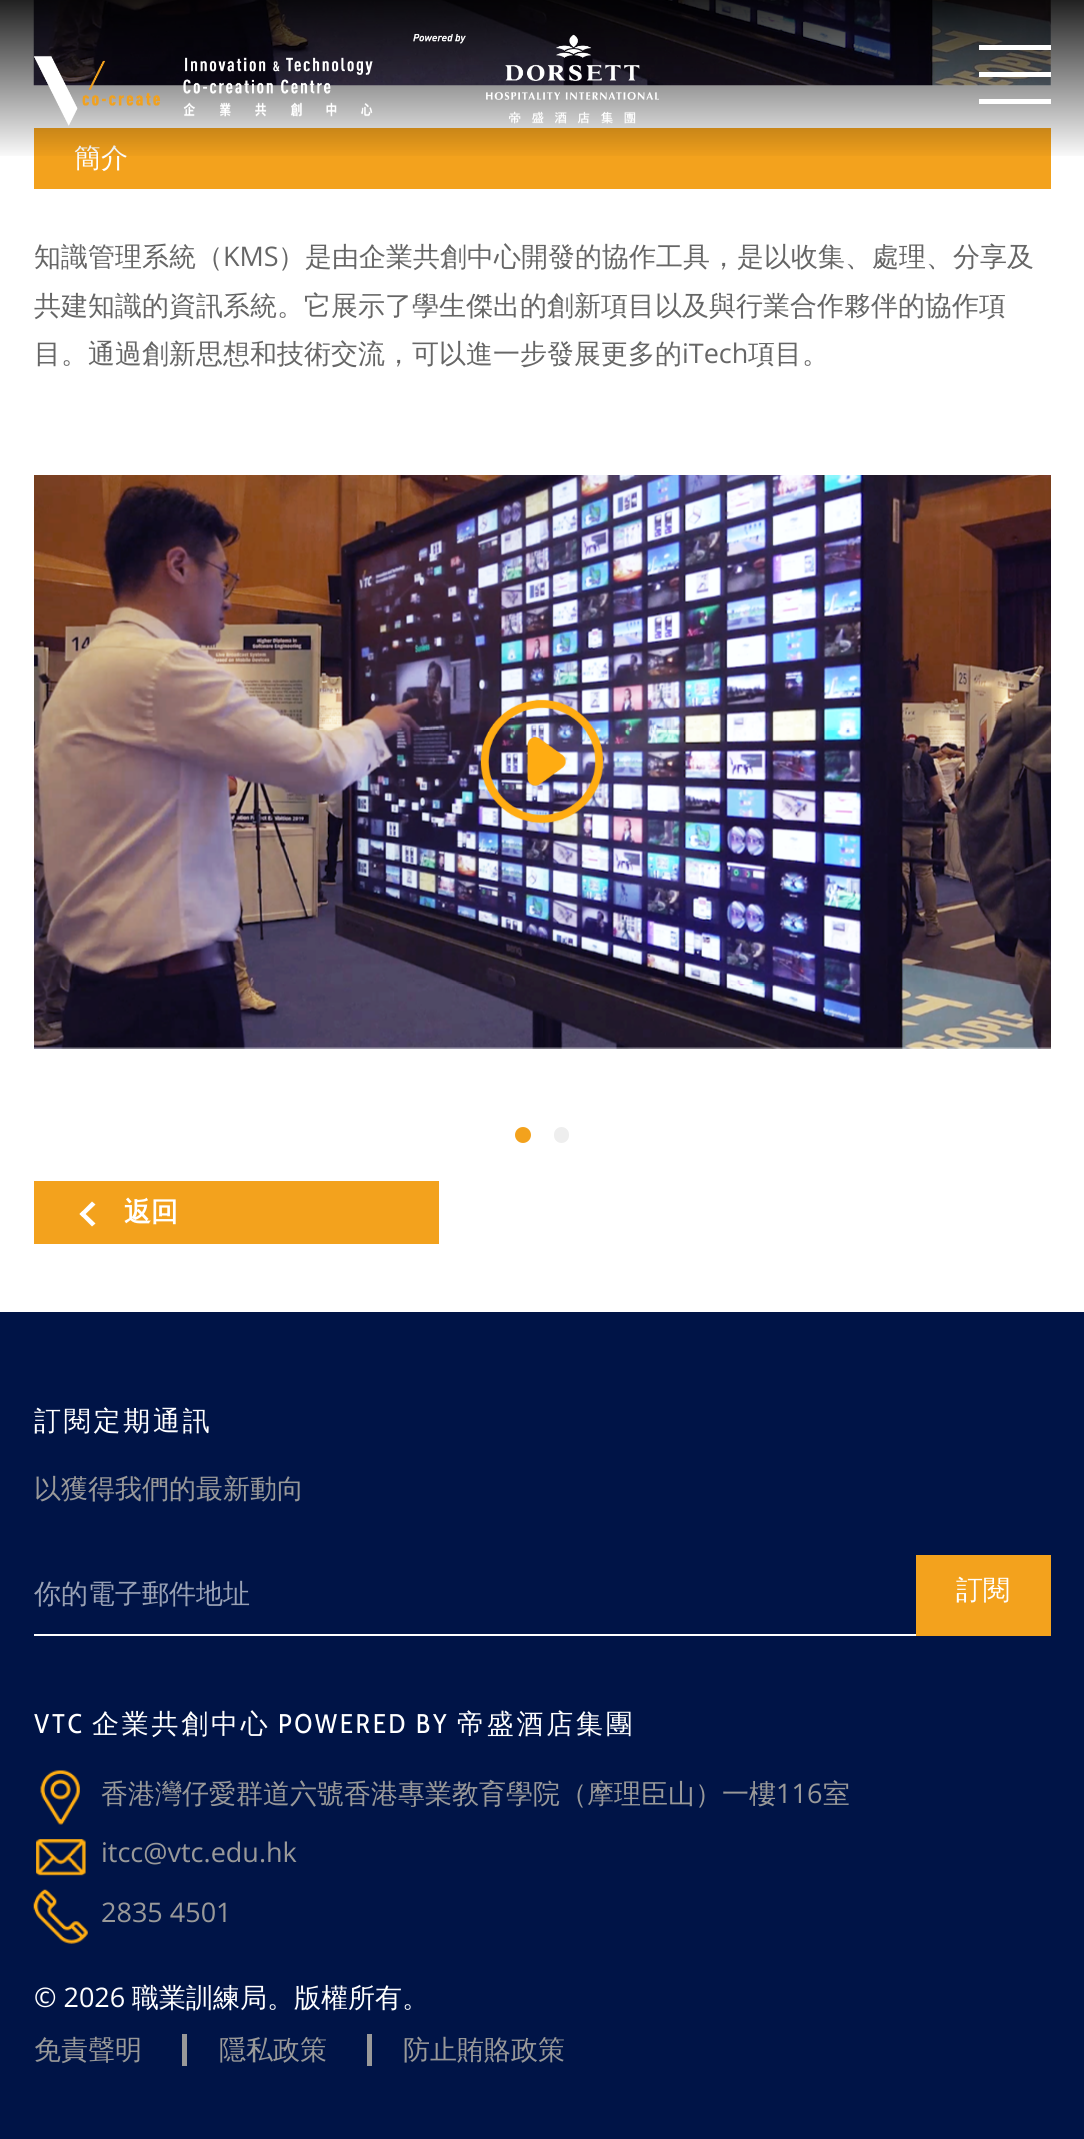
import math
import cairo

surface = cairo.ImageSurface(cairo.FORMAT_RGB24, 1084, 2139)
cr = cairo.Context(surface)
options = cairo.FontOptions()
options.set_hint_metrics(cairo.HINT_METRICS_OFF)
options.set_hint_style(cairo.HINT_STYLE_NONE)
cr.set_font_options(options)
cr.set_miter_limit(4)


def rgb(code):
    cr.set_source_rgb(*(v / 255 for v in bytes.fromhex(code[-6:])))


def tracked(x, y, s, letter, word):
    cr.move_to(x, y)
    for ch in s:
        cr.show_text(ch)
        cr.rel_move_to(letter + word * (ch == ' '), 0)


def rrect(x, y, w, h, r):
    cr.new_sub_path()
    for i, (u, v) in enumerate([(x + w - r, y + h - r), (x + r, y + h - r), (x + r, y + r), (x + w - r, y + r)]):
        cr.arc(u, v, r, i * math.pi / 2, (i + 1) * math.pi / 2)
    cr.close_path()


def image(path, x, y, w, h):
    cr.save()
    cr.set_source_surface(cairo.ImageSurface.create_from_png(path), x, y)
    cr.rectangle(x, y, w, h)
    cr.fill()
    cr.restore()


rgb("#ffffff")
cr.paint()
image("img/2.png", 33, 0, 1018, 86)
rgb("#f3a21d")
cr.rectangle(34, 128, 1017, 61)
cr.fill()
image("img/3.png", 34, 475, 1017, 574)
image("img/4.png", 480, 699, 124, 125)
cr.arc(523, 1135, 8, 0, 2 * math.pi)
cr.fill()
rgb("#eeeeee")
rrect(554, 1127, 15, 16, 7.5)
cr.fill()
rgb("#f3a21d")
cr.rectangle(34, 1181, 405, 63)
cr.fill()
rgb("#ffffff")
cr.new_path()
cr.move_to(92, 1226.5)
cr.line_to(79.5, 1214)
cr.line_to(82.5, 1211)
cr.line_to(95.5, 1223.5)
cr.close_path()
cr.fill()
cr.new_path()
cr.move_to(82.5, 1217)
cr.line_to(79.5, 1214)
cr.line_to(92, 1201.5)
cr.line_to(95.5, 1204.5)
cr.close_path()
cr.fill()
for x, y, w, h, color in [
    (0, 1312, 1084, 827, "#001447"),
    (34, 1634, 884, 2, "#ffffff"),
    (916, 1555, 135, 81, "#f3a21d"),
]:
    rgb(color)
    cr.rectangle(x, y, w, h)
    cr.fill()
image("img/5.png", 40, 1770, 40, 55)
image("img/6.png", 36, 1839, 50, 37)
image("img/7.png", 33, 1889, 55, 55)
rgb("#999999")
cr.rectangle(182, 2034, 5, 32)
cr.fill()
cr.rectangle(367, 2034, 5, 32)
cr.fill()
cr.select_font_face("WenQuanYi Zen Hei Medium")
cr.set_font_size(27)
rgb("#ffffff")
cr.move_to(74, 167)
cr.show_text("簡介")
gradient = cairo.LinearGradient(542, 0, 542, 160)
gradient.add_color_stop_rgba(0, 0, 0, 0, 0.87)
gradient.add_color_stop_rgba(1, 0, 0, 0, 0)
cr.set_source(gradient)
cr.rectangle(0, 0, 1084, 156)
cr.fill()
for x, y, w, h, color in [
    (979, 99, 72, 5, "#ffffff"),
    (979, 72, 72, 5, "#ffffff"),
    (979, 45, 72, 5, "#ffffff"),
]:
    rgb(color)
    cr.rectangle(x, y, w, h)
    cr.fill()
image("img/1.png", 34, 34, 625, 92)
rgb("#666666")
cr.move_to(34, 266)
cr.show_text("知識管理系統（")
cr.select_font_face("Open Sans")
cr.move_to(223, 266)
cr.show_text("KMS")
cr.select_font_face("WenQuanYi Zen Hei Medium")
for x, y, s in [
    (278, 266, "）是由企業共創中心開發的協作工具，是以收集、處理、分享及"),
    (34, 315, "共建知識的資訊系統。它展示了學生傑出的創新項目以及與行業合作夥伴的協作項"),
    (34, 363, "目。通過創新思想和技術交流，可以進一步發展更多的"),
]:
    cr.move_to(x, y)
    cr.show_text(s)
cr.select_font_face("Open Sans")
cr.move_to(682, 363)
cr.show_text("iTech")
cr.select_font_face("WenQuanYi Zen Hei Medium")
cr.move_to(748, 363)
cr.show_text("項目。")
cr.select_font_face("WenQuanYi Zen Hei", cairo.FONT_SLANT_NORMAL, cairo.FONT_WEIGHT_BOLD)
rgb("#ffffff")
cr.move_to(124, 1221)
cr.show_text("返回")
cr.select_font_face("WenQuanYi Zen Hei Medium")
tracked(34, 1430, "訂閱定期通訊", 2.75, 0)
rgb("#999999")
cr.move_to(34, 1498)
cr.show_text("以獲得我們的最新動向")
rgb("#99a1b5")
cr.move_to(34, 1603)
cr.show_text("你的電子郵件地址")
rgb("#ffffff")
cr.move_to(956, 1599)
cr.show_text("訂閱")
cr.select_font_face("Cabin Condensed")
tracked(34, 1733, "VTC", 2.75, 0)
cr.select_font_face("WenQuanYi Zen Hei Medium")
tracked(92, 1733, "企業共創中心", 2.75, 0)
cr.select_font_face("Cabin Condensed")
tracked(278, 1733, "POWERED BY", 2.75, 0)
cr.select_font_face("WenQuanYi Zen Hei Medium")
tracked(457, 1733, "帝盛酒店集團", 2.75, 0)
rgb("#999999")
cr.move_to(101, 1803)
cr.show_text("香港灣仔愛群道六號香港專業教育學院（摩理臣山）一樓")
cr.select_font_face("Open Sans")
cr.move_to(776, 1803)
cr.show_text("116")
cr.select_font_face("WenQuanYi Zen Hei Medium")
cr.move_to(823, 1803)
cr.show_text("室")
cr.select_font_face("Open Sans")
cr.move_to(101, 1862)
cr.show_text("itcc@vtc.edu.hk")
cr.move_to(101, 1922)
cr.show_text("2835 4501")
rgb("#ffffff")
cr.move_to(34, 2007)
cr.show_text("© 2026")
cr.select_font_face("WenQuanYi Zen Hei Medium")
cr.move_to(132, 2007)
cr.show_text("職業訓練局。版權所有。")
rgb("#999999")
for x, y, s in [
    (34, 2059, "免責聲明"),
    (219, 2059, "隱私政策"),
    (403, 2059, "防止賄賂政策"),
]:
    cr.move_to(x, y)
    cr.show_text(s)
surface.write_to_png("page.png")
